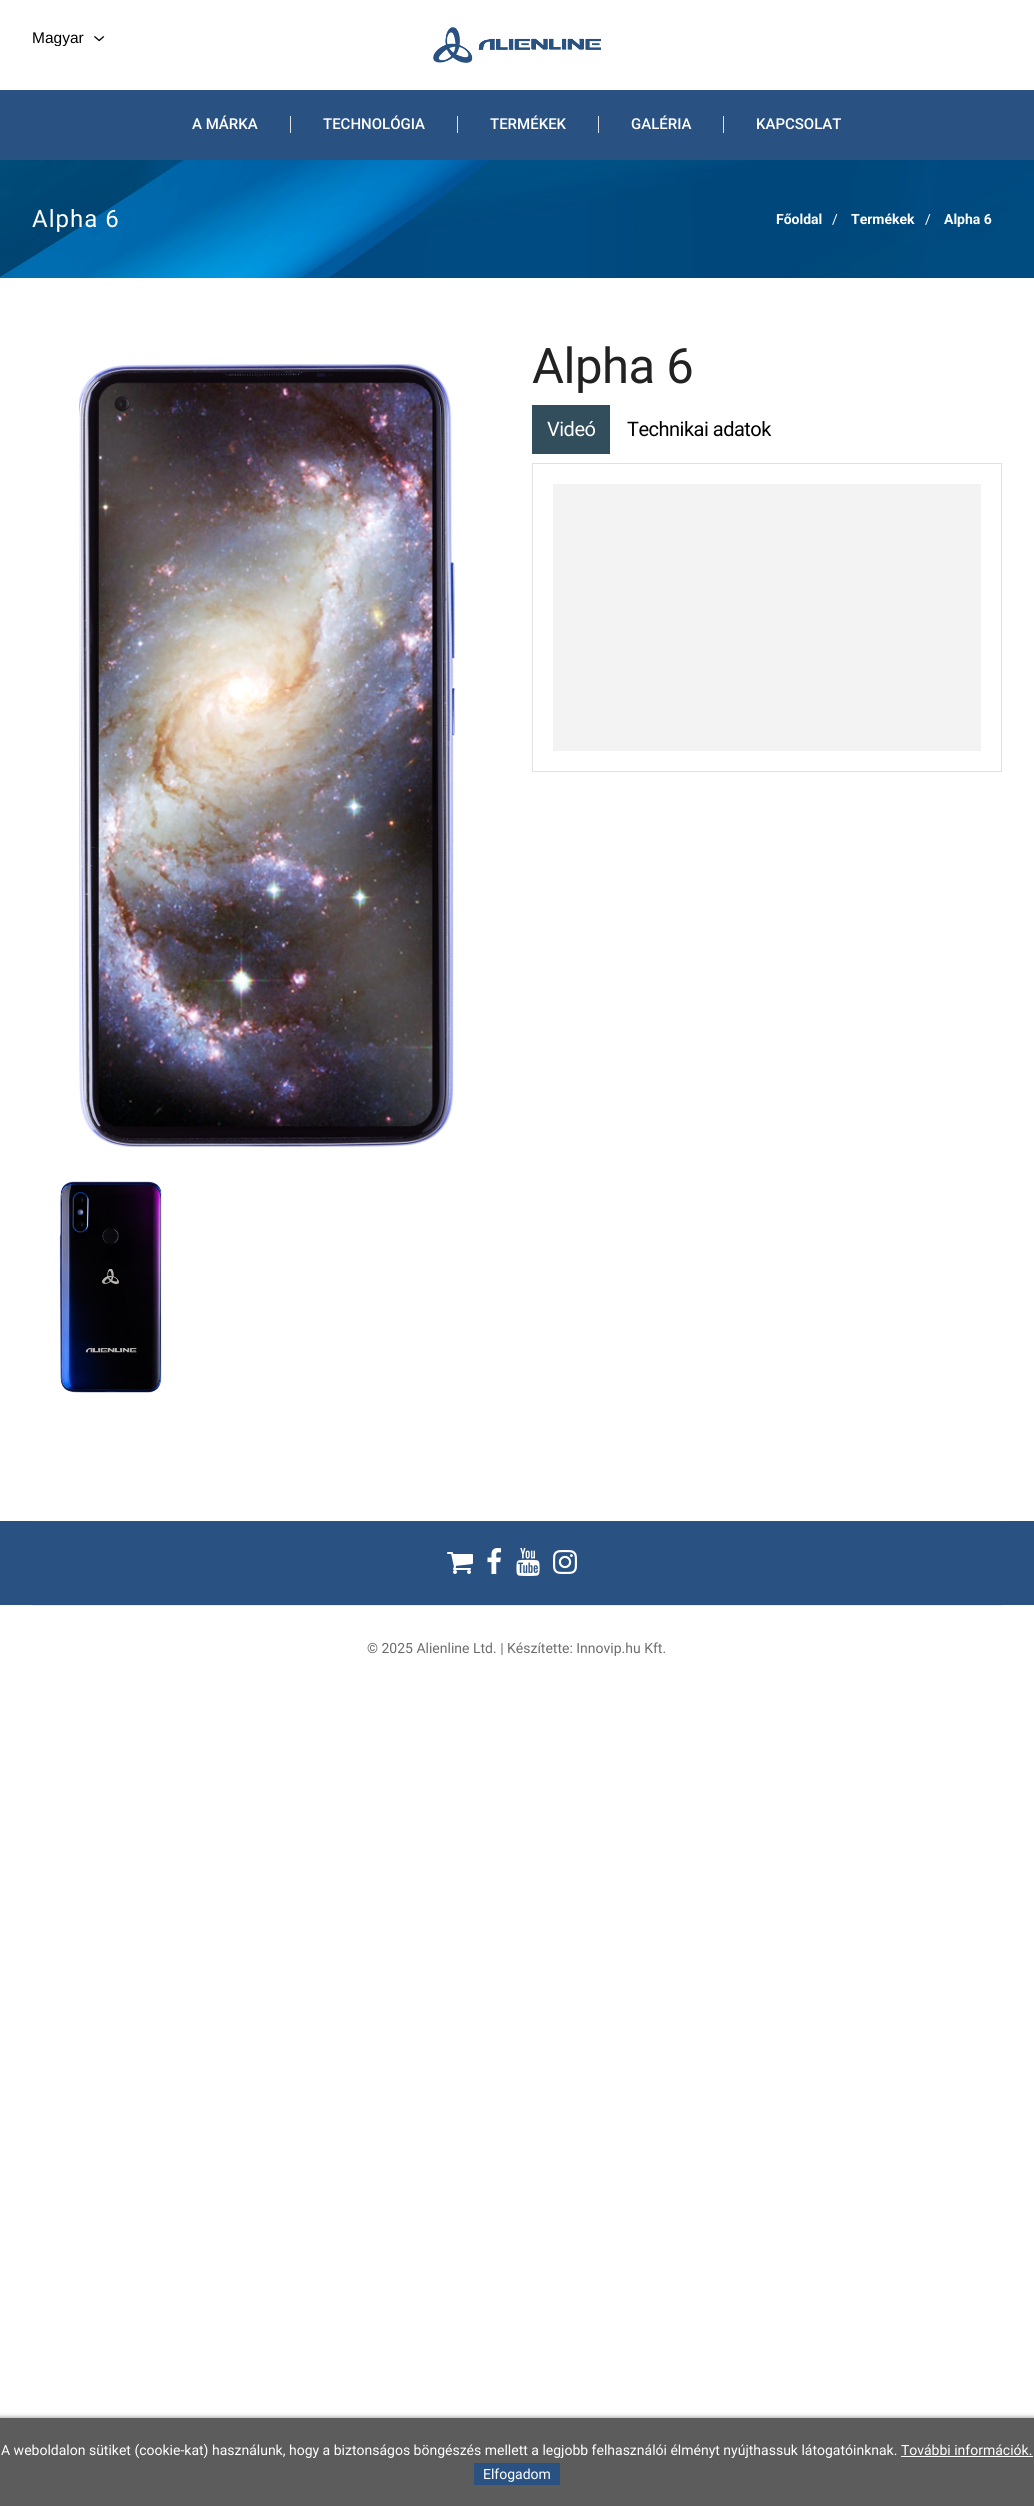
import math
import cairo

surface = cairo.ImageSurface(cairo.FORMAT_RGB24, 1034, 2506)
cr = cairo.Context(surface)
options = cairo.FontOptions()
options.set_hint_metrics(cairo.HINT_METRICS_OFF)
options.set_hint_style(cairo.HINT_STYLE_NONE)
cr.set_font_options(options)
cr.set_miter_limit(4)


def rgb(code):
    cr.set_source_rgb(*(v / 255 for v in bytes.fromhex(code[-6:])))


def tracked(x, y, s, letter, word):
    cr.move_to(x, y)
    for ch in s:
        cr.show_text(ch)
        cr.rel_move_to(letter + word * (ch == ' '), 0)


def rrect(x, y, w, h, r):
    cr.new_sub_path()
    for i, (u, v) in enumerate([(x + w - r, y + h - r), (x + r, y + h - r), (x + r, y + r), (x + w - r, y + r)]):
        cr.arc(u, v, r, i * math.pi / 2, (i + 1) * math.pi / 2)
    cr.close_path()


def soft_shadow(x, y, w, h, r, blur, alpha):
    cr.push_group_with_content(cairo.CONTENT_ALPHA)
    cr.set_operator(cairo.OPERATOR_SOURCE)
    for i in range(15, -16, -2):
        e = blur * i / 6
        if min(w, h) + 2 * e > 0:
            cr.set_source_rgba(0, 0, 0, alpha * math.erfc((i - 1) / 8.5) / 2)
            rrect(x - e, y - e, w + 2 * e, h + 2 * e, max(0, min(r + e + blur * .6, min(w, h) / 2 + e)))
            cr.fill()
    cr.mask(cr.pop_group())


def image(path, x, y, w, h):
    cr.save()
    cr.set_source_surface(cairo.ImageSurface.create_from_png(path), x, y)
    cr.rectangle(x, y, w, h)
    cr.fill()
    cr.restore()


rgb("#ffffff")
cr.paint()
image("img/1.png", 94, 36, 11, 6)
image("img/2.png", 433, 27, 168, 36)
for x, y, w, h, color in [
    (0, 90, 1034, 70, "#295283"),
    (290, 116, 1, 17, "#dfe1e2"),
    (457, 116, 1, 17, "#dfe1e2"),
    (598, 116, 1, 17, "#dfe1e2"),
    (723, 116, 1, 17, "#dfe1e2"),
]:
    rgb(color)
    cr.rectangle(x, y, w, h)
    cr.fill()
image("img/3.png", 0, 160, 1034, 118)
image("img/4.png", 79, 364, 376, 783)
image("img/5.png", 59, 1181, 103, 212)
for x, y, w, h, color in [
    (532, 463, 470, 1, "#e1e1e1"),
    (532, 405, 78, 49, "#324d5b"),
    (1001, 464, 1, 308, "#e1e1e1"),
    (532, 771, 470, 1, "#e1e1e1"),
    (532, 464, 1, 308, "#e1e1e1"),
    (553, 484, 428, 267, "#f4f3f3"),
    (0, 1521, 1034, 84, "#295283"),
    (32, 1521, 970, 1, "#325667"),
]:
    rgb(color)
    cr.rectangle(x, y, w, h)
    cr.fill()
image("img/6.png", 447, 1552, 26, 22)
image("img/7.png", 487, 1548, 14, 26)
image("img/8.png", 516, 1548, 24, 28)
image("img/9.png", 553, 1550, 24, 24)
rgb("#eaeaea")
cr.rectangle(32, 1605, 970, 1)
cr.fill()
rgb("#000000")
soft_shadow(0, 2418, 1034, 88, 0, 2.5, 0.5)
for x, y, w, h, color in [
    (0, 2418, 1034, 88, "#5c5c5c"),
    (901, 2456, 132, 1, "#ffffff"),
    (474, 2463, 86, 22, "#295283"),
]:
    rgb(color)
    cr.rectangle(x, y, w, h)
    cr.fill()
cr.save()
cr.rectangle(32, 30, 85, 16)
cr.clip()
cr.select_font_face("Liberation Sans")
cr.set_font_size(15.5)
rgb("#000000")
cr.move_to(32, 43)
cr.show_text("Magyar")
cr.restore()
cr.select_font_face("Roboto Medium")
cr.set_font_size(15)
rgb("#ffffff")
for x, y, s in [
    (192, 129, "A MÁRKA"),
    (323, 129, "TECHNOLÓGIA"),
    (490, 129, "TERMÉKEK"),
    (631, 129, "GALÉRIA"),
    (756, 129, "KAPCSOLAT"),
]:
    cr.move_to(x, y)
    cr.show_text(s)
cr.select_font_face("Roboto")
cr.set_font_size(24)
tracked(32, 227, "Alpha 6", 1, 0)
cr.select_font_face("Roboto", cairo.FONT_SLANT_NORMAL, cairo.FONT_WEIGHT_BOLD)
cr.set_font_size(14)
cr.move_to(776, 224)
cr.show_text("Főoldal")
cr.select_font_face("Roboto")
cr.move_to(832, 224)
cr.show_text("/")
cr.select_font_face("Roboto", cairo.FONT_SLANT_NORMAL, cairo.FONT_WEIGHT_BOLD)
cr.move_to(851, 224)
cr.show_text("Termékek")
cr.select_font_face("Roboto")
cr.move_to(925, 224)
cr.show_text("/")
cr.select_font_face("Roboto", cairo.FONT_SLANT_NORMAL, cairo.FONT_WEIGHT_BOLD)
cr.move_to(944, 224)
cr.show_text("Alpha 6")
cr.select_font_face("Roboto")
cr.set_font_size(49)
rgb("#222222")
tracked(532, 383, "Alpha 6", -0.5, 0)
cr.set_font_size(20)
rgb("#ffffff")
tracked(547, 436, "Videó", -0.5, 0)
rgb("#000000")
tracked(627, 436, "Technikai adatok", -0.5, 0)
cr.set_font_size(14)
rgb("#6d6d6d")
cr.move_to(367, 1653)
cr.show_text("© 2025 Alienline Ltd. | Készítette: Innovip.hu Kft.")
rgb("#ffffff")
cr.move_to(1, 2455)
cr.show_text("A weboldalon sütiket (cookie-kat) használunk, hogy a biztonságos böngészés mellett a legjobb felhasználói élményt nyújthassuk látogatóinknak. További információk.")
cr.move_to(483, 2479)
cr.show_text("Elfogadom")
surface.write_to_png("page.png")
